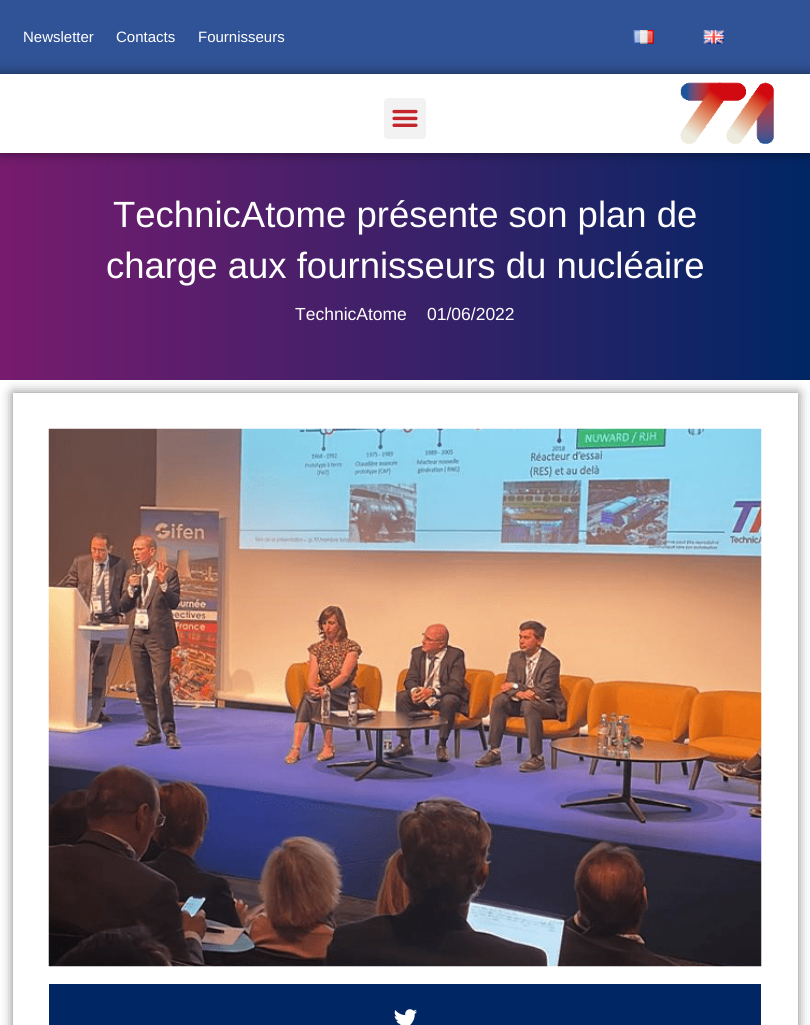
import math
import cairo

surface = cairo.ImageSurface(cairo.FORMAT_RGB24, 810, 1025)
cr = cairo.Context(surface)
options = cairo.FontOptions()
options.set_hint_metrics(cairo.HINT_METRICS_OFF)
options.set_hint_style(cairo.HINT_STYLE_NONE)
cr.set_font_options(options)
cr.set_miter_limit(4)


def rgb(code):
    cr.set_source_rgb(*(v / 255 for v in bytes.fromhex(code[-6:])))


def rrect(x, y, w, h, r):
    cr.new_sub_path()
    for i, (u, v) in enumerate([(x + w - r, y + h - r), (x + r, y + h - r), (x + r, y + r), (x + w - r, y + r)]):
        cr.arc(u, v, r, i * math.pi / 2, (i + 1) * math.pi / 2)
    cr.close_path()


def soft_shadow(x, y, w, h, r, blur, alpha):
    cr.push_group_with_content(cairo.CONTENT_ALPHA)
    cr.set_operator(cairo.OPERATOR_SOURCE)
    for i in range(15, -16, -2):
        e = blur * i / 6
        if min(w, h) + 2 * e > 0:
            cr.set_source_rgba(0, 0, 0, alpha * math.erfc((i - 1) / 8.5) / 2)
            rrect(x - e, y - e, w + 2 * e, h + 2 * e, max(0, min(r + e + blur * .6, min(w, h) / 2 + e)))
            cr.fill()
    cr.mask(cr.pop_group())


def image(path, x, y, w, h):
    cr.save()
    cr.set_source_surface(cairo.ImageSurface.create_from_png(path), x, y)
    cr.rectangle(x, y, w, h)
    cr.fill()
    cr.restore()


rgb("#ffffff")
cr.paint()
rgb("#305296")
cr.rectangle(0, 0, 810, 74)
cr.fill()
image("img/1.png", 633, 30, 21, 14)
image("img/2.png", 703, 30, 21, 14)
gradient = cairo.LinearGradient(0, 266, 810, 266)
gradient.add_color_stop_rgba(0, 0.467, 0.106, 0.431, 1)
gradient.add_color_stop_rgba(1, 0, 0.149, 0.392, 1)
cr.set_source(gradient)
cr.rectangle(0, 153, 810, 227)
cr.fill()
rgb("#000000")
soft_shadow(0, 74, 810, 79, 0, 6, 0.5)
rgb("#ffffff")
cr.rectangle(0, 74, 810, 79)
cr.fill()
rgb("#f2f2f2")
rrect(384, 98, 42, 41, 4)
cr.fill()
image("img/3.png", 392, 109, 26, 18)
image("img/4.png", 680, 82, 94, 62)
cr.save()
cr.set_fill_rule(cairo.FILL_RULE_EVEN_ODD)
cr.new_path()
cr.move_to(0, 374)
cr.line_to(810, 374)
cr.line_to(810, 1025)
cr.line_to(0, 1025)
cr.close_path()
cr.move_to(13, 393)
cr.line_to(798, 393)
cr.line_to(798, 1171)
cr.line_to(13, 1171)
cr.close_path()
cr.clip()
rgb("#000000")
soft_shadow(13, 393, 785, 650, 0, 6, 0.5)
cr.restore()
image("img/5.png", 48, 428, 714, 539)
rgb("#002664")
cr.rectangle(49, 984, 712, 41)
cr.fill()
image("img/6.png", 394, 1009, 23, 16)
cr.select_font_face("Liberation Sans")
cr.set_font_size(15)
rgb("#ffffff")
for x, y, s in [
    (23, 42, "Newsletter"),
    (116, 42, "Contacts"),
    (198, 42, "Fournisseurs"),
]:
    cr.move_to(x, y)
    cr.show_text(s)
cr.set_font_size(36.5)
cr.move_to(113, 227)
cr.show_text("TechnicAtome présente son plan de")
cr.move_to(106, 278)
cr.show_text("charge aux fournisseurs du nucléaire")
cr.set_font_size(17.5)
cr.move_to(295, 320)
cr.show_text("TechnicAtome")
cr.move_to(427, 320)
cr.show_text("01/06/2022")
surface.write_to_png("page.png")
